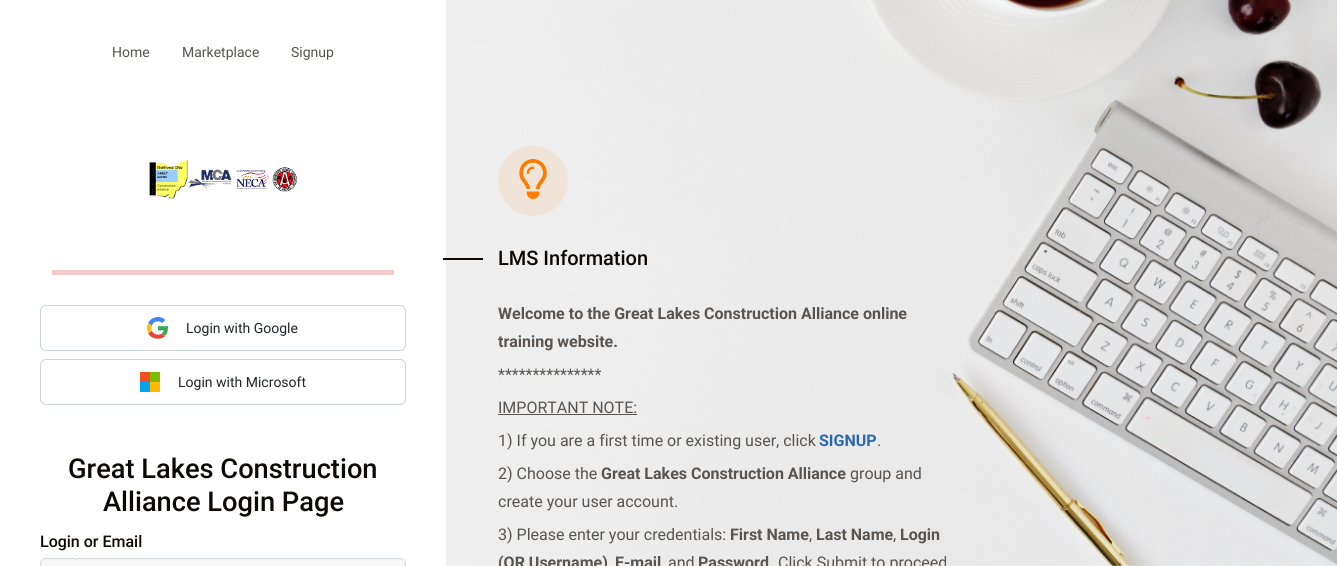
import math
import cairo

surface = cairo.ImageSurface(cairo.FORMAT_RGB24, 1337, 566)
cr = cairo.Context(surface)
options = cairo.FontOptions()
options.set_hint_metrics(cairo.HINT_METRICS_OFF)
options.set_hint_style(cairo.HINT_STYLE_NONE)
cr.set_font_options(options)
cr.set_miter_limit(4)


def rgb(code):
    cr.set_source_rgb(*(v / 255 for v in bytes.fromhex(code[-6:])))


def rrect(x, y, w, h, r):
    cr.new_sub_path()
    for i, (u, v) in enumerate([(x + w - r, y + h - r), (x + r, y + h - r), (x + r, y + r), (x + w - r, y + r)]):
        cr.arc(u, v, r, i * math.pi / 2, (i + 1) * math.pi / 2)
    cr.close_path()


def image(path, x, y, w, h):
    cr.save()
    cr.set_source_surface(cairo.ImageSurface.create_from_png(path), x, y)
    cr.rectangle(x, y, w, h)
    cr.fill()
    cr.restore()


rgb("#ffffff")
cr.paint()
image("img/1.png", 446, 0, 891, 566)
image("img/2.png", 149, 159, 148, 40)
rgb("#f5c8cd")
cr.rectangle(52, 270, 342, 5)
cr.fill()
rrect(40.5, 305.5, 365, 45, 5.5)
rgb("#ced4da")
cr.set_line_width(1)
cr.stroke()
image("img/3.png", 147, 317, 22, 22)
rrect(40.5, 359.5, 365, 45, 5.5)
cr.stroke()
for x, y, w, h, color in [
    (140, 372, 10, 10, "#f25022"),
    (150, 372, 10, 10, "#7fba00"),
    (140, 382, 10, 10, "#00a4ef"),
    (150, 382, 10, 10, "#ffb900"),
]:
    rgb(color)
    cr.rectangle(x, y, w, h)
    cr.fill()
rgb("#f7f7f7")
rrect(40, 558, 39, 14, 6)
cr.fill()
rgb("#ced4da")
cr.set_fill_rule(cairo.FILL_RULE_EVEN_ODD)
cr.new_path()
cr.move_to(46, 558)
cr.line_to(73, 558)
cr.curve_to(76, 558, 79, 561, 79, 564)
cr.line_to(79, 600)
cr.curve_to(79, 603, 76, 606, 73, 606)
cr.line_to(46, 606)
cr.curve_to(43, 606, 40, 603, 40, 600)
cr.line_to(40, 564)
cr.curve_to(40, 561, 43, 558, 46, 558)
cr.close_path()
cr.move_to(46, 559)
cr.line_to(73, 559)
cr.curve_to(76, 559, 79, 561, 79, 564)
cr.line_to(79, 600)
cr.curve_to(79, 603, 76, 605, 73, 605)
cr.line_to(46, 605)
cr.curve_to(43, 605, 41, 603, 41, 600)
cr.line_to(41, 564)
cr.curve_to(41, 561, 43, 559, 46, 559)
cr.close_path()
cr.fill()
rgb("#f7f7f7")
cr.new_path()
cr.move_to(77, 558)
cr.line_to(400, 558)
cr.curve_to(403.5, 558, 406, 560.5, 406, 564)
cr.line_to(406, 566)
cr.curve_to(406, 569.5, 403.5, 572, 400, 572)
cr.line_to(77, 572)
cr.close_path()
cr.fill()
rgb("#ced4da")
cr.new_path()
cr.move_to(77, 558)
cr.line_to(400, 558)
cr.curve_to(403, 558, 406, 561, 406, 564)
cr.line_to(406, 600)
cr.curve_to(406, 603, 403, 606, 400, 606)
cr.line_to(77, 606)
cr.close_path()
cr.move_to(77, 559)
cr.line_to(400, 559)
cr.curve_to(403, 559, 405, 561, 405, 564)
cr.line_to(405, 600)
cr.curve_to(405, 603, 403, 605, 400, 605)
cr.line_to(77, 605)
cr.close_path()
cr.fill()
rgb("#f0e4d8")
cr.arc(533, 181, 35, 0, 2 * math.pi)
cr.fill()
image("img/4.png", 519, 159, 28, 40)
rgb("#0d0804")
cr.rectangle(443, 258, 40, 2)
cr.fill()
rgb("#575451")
cr.rectangle(498, 414, 139, 1)
cr.fill()
cr.select_font_face("Roboto")
cr.set_font_size(14)
for x, y, s in [
    (112, 57, "Home"),
    (182, 57, "Marketplace"),
    (291, 57, "Signup"),
]:
    cr.move_to(x, y)
    cr.show_text(s)
rgb("#212529")
cr.move_to(186, 333)
cr.show_text("Login with Google")
cr.move_to(178, 387)
cr.show_text("Login with Microsoft")
cr.select_font_face("Roboto Medium")
cr.set_font_size(27.25)
rgb("#0d0804")
cr.move_to(68, 478)
cr.show_text("Great Lakes Construction")
cr.move_to(103, 511)
cr.show_text("Alliance Login Page")
cr.set_font_size(16)
cr.move_to(40, 547)
cr.show_text("Login or Email")
cr.set_font_size(20)
cr.move_to(498, 265)
cr.show_text("LMS Information")
cr.select_font_face("Roboto", cairo.FONT_SLANT_NORMAL, cairo.FONT_WEIGHT_BOLD)
cr.set_font_size(16)
rgb("#575451")
cr.move_to(498, 319)
cr.show_text("Welcome to the Great Lakes Construction Alliance online")
cr.move_to(498, 347)
cr.show_text("training website.")
cr.select_font_face("Roboto")
for x, y, s in [
    (498, 380, "***************"),
    (498, 413, "IMPORTANT NOTE:"),
    (498, 446, "1) If you are a first time or existing user, click"),
]:
    cr.move_to(x, y)
    cr.show_text(s)
cr.select_font_face("Roboto", cairo.FONT_SLANT_NORMAL, cairo.FONT_WEIGHT_BOLD)
rgb("#2868b0")
cr.move_to(819, 446)
cr.show_text("SIGNUP")
cr.select_font_face("Roboto")
rgb("#575451")
cr.move_to(877, 446)
cr.show_text(".")
cr.move_to(498, 479)
cr.show_text("2) Choose the")
cr.select_font_face("Roboto", cairo.FONT_SLANT_NORMAL, cairo.FONT_WEIGHT_BOLD)
cr.move_to(601, 479)
cr.show_text("Great Lakes Construction Alliance")
cr.select_font_face("Roboto")
for x, y, s in [
    (850, 479, "group and"),
    (498, 507, "create your user account."),
    (498, 540, "3) Please enter your credentials:"),
]:
    cr.move_to(x, y)
    cr.show_text(s)
cr.select_font_face("Roboto", cairo.FONT_SLANT_NORMAL, cairo.FONT_WEIGHT_BOLD)
cr.move_to(730, 540)
cr.show_text("First Name")
cr.select_font_face("Roboto")
cr.move_to(809, 540)
cr.show_text(",")
cr.select_font_face("Roboto", cairo.FONT_SLANT_NORMAL, cairo.FONT_WEIGHT_BOLD)
cr.move_to(816, 540)
cr.show_text("Last Name")
cr.select_font_face("Roboto")
cr.move_to(893, 540)
cr.show_text(",")
cr.select_font_face("Roboto", cairo.FONT_SLANT_NORMAL, cairo.FONT_WEIGHT_BOLD)
for x, y, s in [
    (900, 540, "Login"),
    (498, 568, "(OR Username)"),
    (615, 568, "E-mail"),
]:
    cr.move_to(x, y)
    cr.show_text(s)
cr.select_font_face("Roboto")
cr.move_to(668, 568)
cr.show_text("and")
cr.select_font_face("Roboto", cairo.FONT_SLANT_NORMAL, cairo.FONT_WEIGHT_BOLD)
cr.move_to(698, 568)
cr.show_text("Password")
cr.select_font_face("Roboto")
cr.move_to(778, 568)
cr.show_text("Click Submit to proceed")
surface.write_to_png("page.png")
